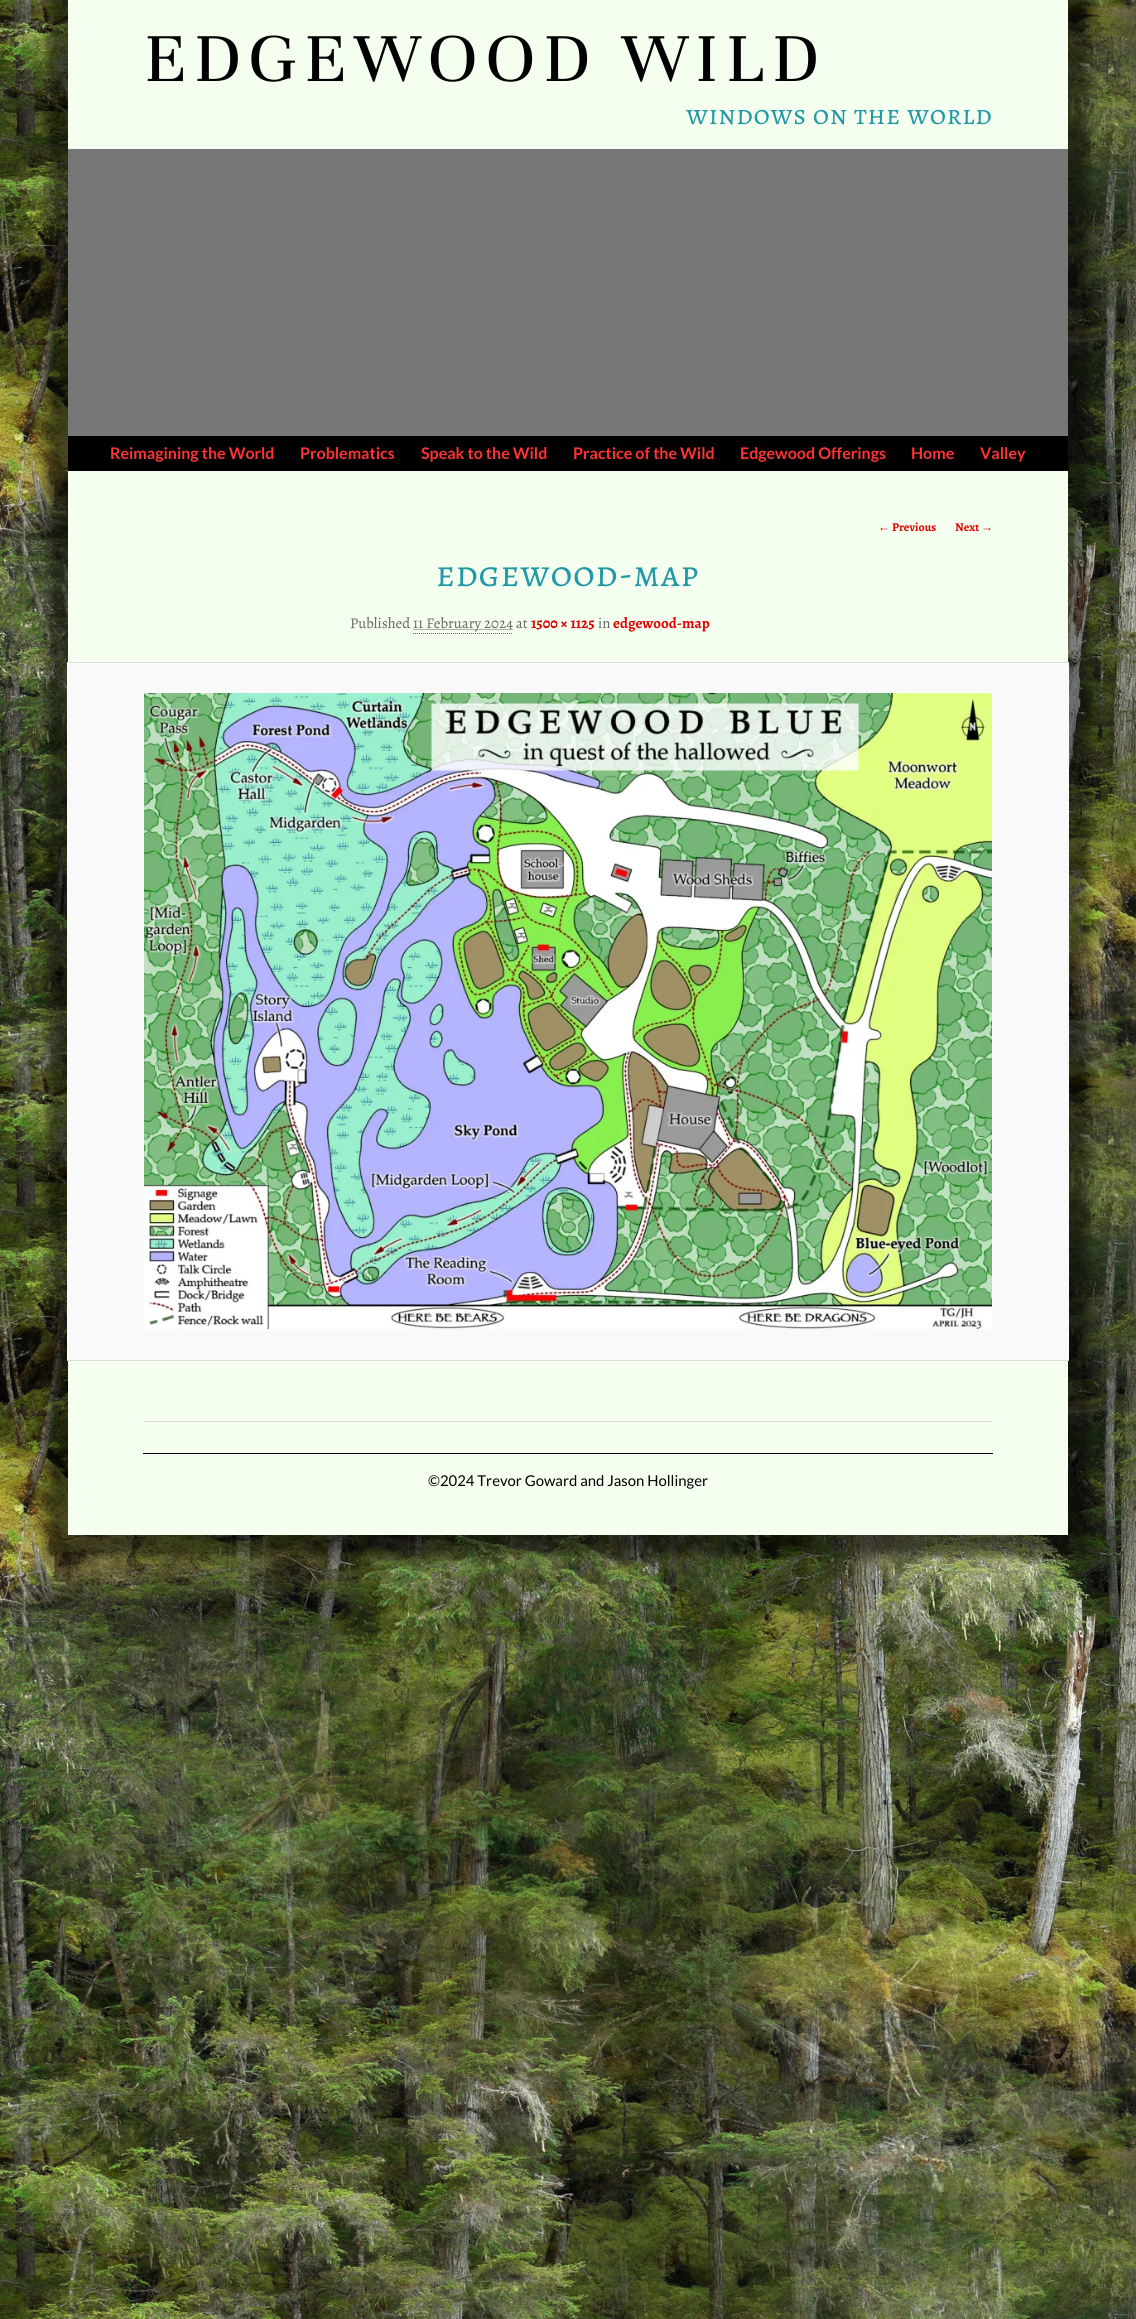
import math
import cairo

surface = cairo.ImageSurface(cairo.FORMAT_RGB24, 1136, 2319)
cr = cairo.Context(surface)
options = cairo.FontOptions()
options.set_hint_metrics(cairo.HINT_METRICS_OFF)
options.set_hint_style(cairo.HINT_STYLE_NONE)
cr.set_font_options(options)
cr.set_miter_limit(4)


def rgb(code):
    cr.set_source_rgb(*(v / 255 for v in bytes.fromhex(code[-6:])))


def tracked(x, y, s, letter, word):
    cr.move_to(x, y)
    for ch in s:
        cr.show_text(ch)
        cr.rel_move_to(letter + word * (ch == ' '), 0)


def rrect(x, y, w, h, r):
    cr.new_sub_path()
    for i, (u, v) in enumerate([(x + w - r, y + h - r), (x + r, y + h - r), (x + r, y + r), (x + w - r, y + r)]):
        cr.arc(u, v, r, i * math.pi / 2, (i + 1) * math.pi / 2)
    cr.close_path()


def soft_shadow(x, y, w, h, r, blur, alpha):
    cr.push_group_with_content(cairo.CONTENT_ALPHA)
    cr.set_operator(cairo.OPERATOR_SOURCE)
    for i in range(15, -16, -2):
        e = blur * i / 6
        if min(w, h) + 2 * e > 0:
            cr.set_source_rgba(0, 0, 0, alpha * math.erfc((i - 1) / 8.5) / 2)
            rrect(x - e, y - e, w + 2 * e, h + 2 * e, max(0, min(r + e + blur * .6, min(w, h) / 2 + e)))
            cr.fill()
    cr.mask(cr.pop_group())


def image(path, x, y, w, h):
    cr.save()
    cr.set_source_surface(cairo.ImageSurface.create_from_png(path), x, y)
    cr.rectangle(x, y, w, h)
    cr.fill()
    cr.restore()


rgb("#ffffff")
cr.paint()
image("img/1.png", 0, 0, 1136, 2319)
rgb("#000000")
soft_shadow(48, -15, 1040, 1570, 0, 5, 0.5)
for x, y, w, h, color in [
    (68, 0, 1000, 1535, "#f4fff0"),
    (68, 149, 1000, 287, "#777777"),
    (68, 436, 1000, 35, "#000000"),
    (143, 1421, 850, 1, "#dddddd"),
]:
    rgb(color)
    cr.rectangle(x, y, w, h)
    cr.fill()
cr.new_path()
cr.move_to(413, 633.5)
cr.line_to(513, 633.5)
rgb("#666666")
cr.set_line_width(1)
cr.set_dash([1, 1])
cr.stroke()
cr.new_path()
cr.move_to(413.5, 629.5)
cr.line_to(513.5, 629.5)
cr.stroke()
for x, y, w, h, color in [
    (67, 663, 1002, 697, "#f9f9f9"),
    (67, 662, 1002, 1, "#dddddd"),
    (67, 1360, 1002, 1, "#dddddd"),
]:
    rgb(color)
    cr.rectangle(x, y, w, h)
    cr.fill()
image("img/2.png", 144, 693, 848, 636)
rgb("#000000")
cr.rectangle(143, 1453, 850, 1)
cr.fill()
cr.select_font_face("Unna")
cr.set_font_size(75)
tracked(144, 81, "EDGEWOOD WILD", 7.5, 0)
cr.select_font_face("Alegreya SC")
cr.set_font_size(28)
rgb("#2198a6")
tracked(686, 124, "windows on the world", 0.6, 0)
cr.select_font_face("Lato", cairo.FONT_SLANT_NORMAL, cairo.FONT_WEIGHT_BOLD)
cr.set_font_size(16)
rgb("#ff3333")
for x, y, s in [
    (110, 459, "Reimagining the World"),
    (300, 459, "Problematics"),
    (421, 459, "Speak to the Wild"),
    (573, 459, "Practice of the Wild"),
    (740, 459, "Edgewood Offerings"),
    (911, 459, "Home"),
    (980, 459, "Valley"),
]:
    cr.move_to(x, y)
    cr.show_text(s)
cr.select_font_face("Liberation Serif", cairo.FONT_SLANT_NORMAL, cairo.FONT_WEIGHT_BOLD)
cr.set_font_size(12)
rgb("#dd0000")
cr.move_to(878, 531)
cr.show_text("←")
cr.select_font_face("Alegreya", cairo.FONT_SLANT_NORMAL, cairo.FONT_WEIGHT_BOLD)
cr.move_to(892, 531)
cr.show_text("Previous")
cr.move_to(955, 531)
cr.show_text("Next")
cr.select_font_face("Liberation Serif", cairo.FONT_SLANT_NORMAL, cairo.FONT_WEIGHT_BOLD)
cr.move_to(981, 531)
cr.show_text("→")
cr.select_font_face("Alegreya SC")
cr.set_font_size(37.25)
rgb("#2198a6")
tracked(436, 586, "edgewood-map", 0.75, 0)
cr.select_font_face("Alegreya")
cr.set_font_size(14.9)
rgb("#666666")
cr.move_to(350, 628)
cr.show_text("Published")
cr.move_to(413, 628)
cr.show_text("11 February 2024 at")
cr.select_font_face("Alegreya", cairo.FONT_SLANT_NORMAL, cairo.FONT_WEIGHT_BOLD)
rgb("#dd0000")
cr.move_to(531, 628)
cr.show_text("1500 × 1125")
cr.select_font_face("Alegreya")
rgb("#666666")
cr.move_to(598, 628)
cr.show_text("in")
cr.select_font_face("Alegreya", cairo.FONT_SLANT_NORMAL, cairo.FONT_WEIGHT_BOLD)
rgb("#dd0000")
cr.move_to(613, 628)
cr.show_text("edgewood-map")
cr.select_font_face("Lato")
rgb("#000000")
cr.move_to(428, 1486)
cr.show_text("©2024 Trevor Goward and Jason Hollinger")
surface.write_to_png("page.png")
